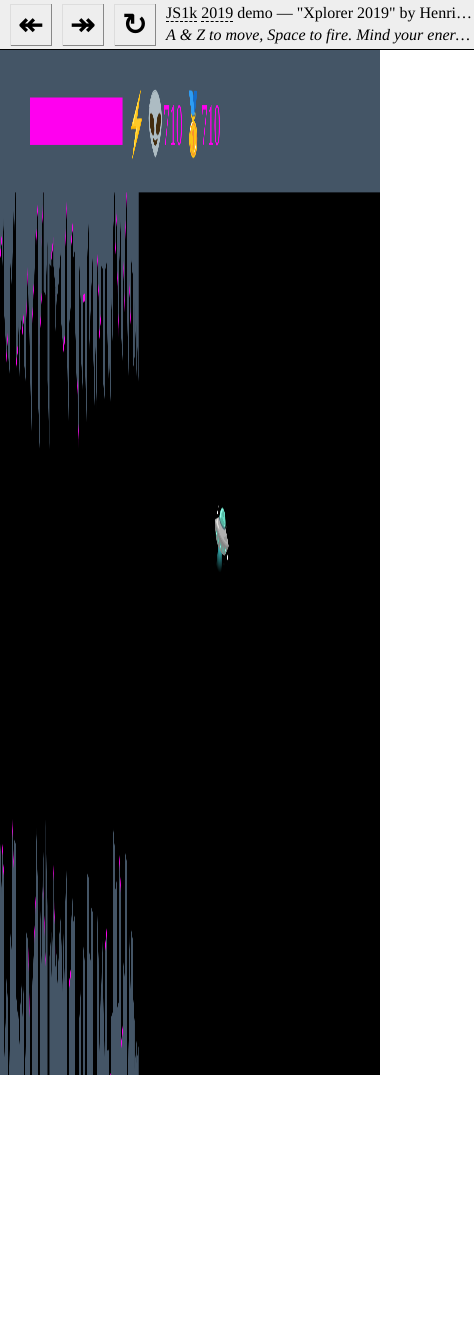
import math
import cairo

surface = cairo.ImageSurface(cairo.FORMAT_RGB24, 474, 1343)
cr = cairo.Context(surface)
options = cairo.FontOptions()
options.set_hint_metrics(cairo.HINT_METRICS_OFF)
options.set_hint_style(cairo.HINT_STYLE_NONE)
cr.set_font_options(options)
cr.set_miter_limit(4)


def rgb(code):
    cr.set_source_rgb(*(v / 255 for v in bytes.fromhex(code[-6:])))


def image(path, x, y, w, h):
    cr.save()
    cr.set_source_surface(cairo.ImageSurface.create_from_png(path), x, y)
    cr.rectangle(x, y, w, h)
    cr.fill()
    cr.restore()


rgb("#ffffff")
cr.paint()
for x, y, w, h, color in [
    (0, 0, 474, 49, "#eeeeee"),
    (0, 49, 474, 1, "#000000"),
    (10, 4, 42, 1, "#dddddd"),
    (51, 4, 1, 42, "#888888"),
    (10, 45, 42, 1, "#888888"),
    (10, 4, 1, 42, "#dddddd"),
    (62, 4, 42, 1, "#dddddd"),
    (103, 4, 1, 42, "#888888"),
    (62, 45, 42, 1, "#888888"),
    (62, 4, 1, 42, "#dddddd"),
    (114, 4, 42, 1, "#dddddd"),
    (155, 4, 1, 42, "#888888"),
    (114, 45, 42, 1, "#888888"),
    (114, 4, 1, 42, "#dddddd"),
]:
    rgb(color)
    cr.rectangle(x, y, w, h)
    cr.fill()
cr.new_path()
cr.move_to(166, 21.5)
cr.line_to(197, 21.5)
rgb("#000000")
cr.set_line_width(1)
cr.set_dash([3, 1.67])
cr.stroke()
cr.new_path()
cr.move_to(201, 21.5)
cr.line_to(233, 21.5)
cr.set_dash([3, 1.83])
cr.stroke()
image("img/1.png", 0, 50, 380, 1025)
cr.select_font_face("DejaVu Sans", cairo.FONT_SLANT_NORMAL, cairo.FONT_WEIGHT_BOLD)
cr.set_font_size(30)
for x, y, s in [
    (18, 35, "↞"),
    (70, 35, "↠"),
    (122, 35, "↻"),
]:
    cr.move_to(x, y)
    cr.show_text(s)
cr.select_font_face("Liberation Serif")
cr.set_font_size(16)
cr.move_to(166, 18)
cr.show_text("JS1k 2019 demo — \"Xplorer 2019\" by Henri…")
cr.select_font_face("Liberation Serif", cairo.FONT_SLANT_ITALIC)
cr.move_to(166, 40)
cr.show_text("A & Z to move, Space to fire. Mind your ener…")
surface.write_to_png("page.png")
